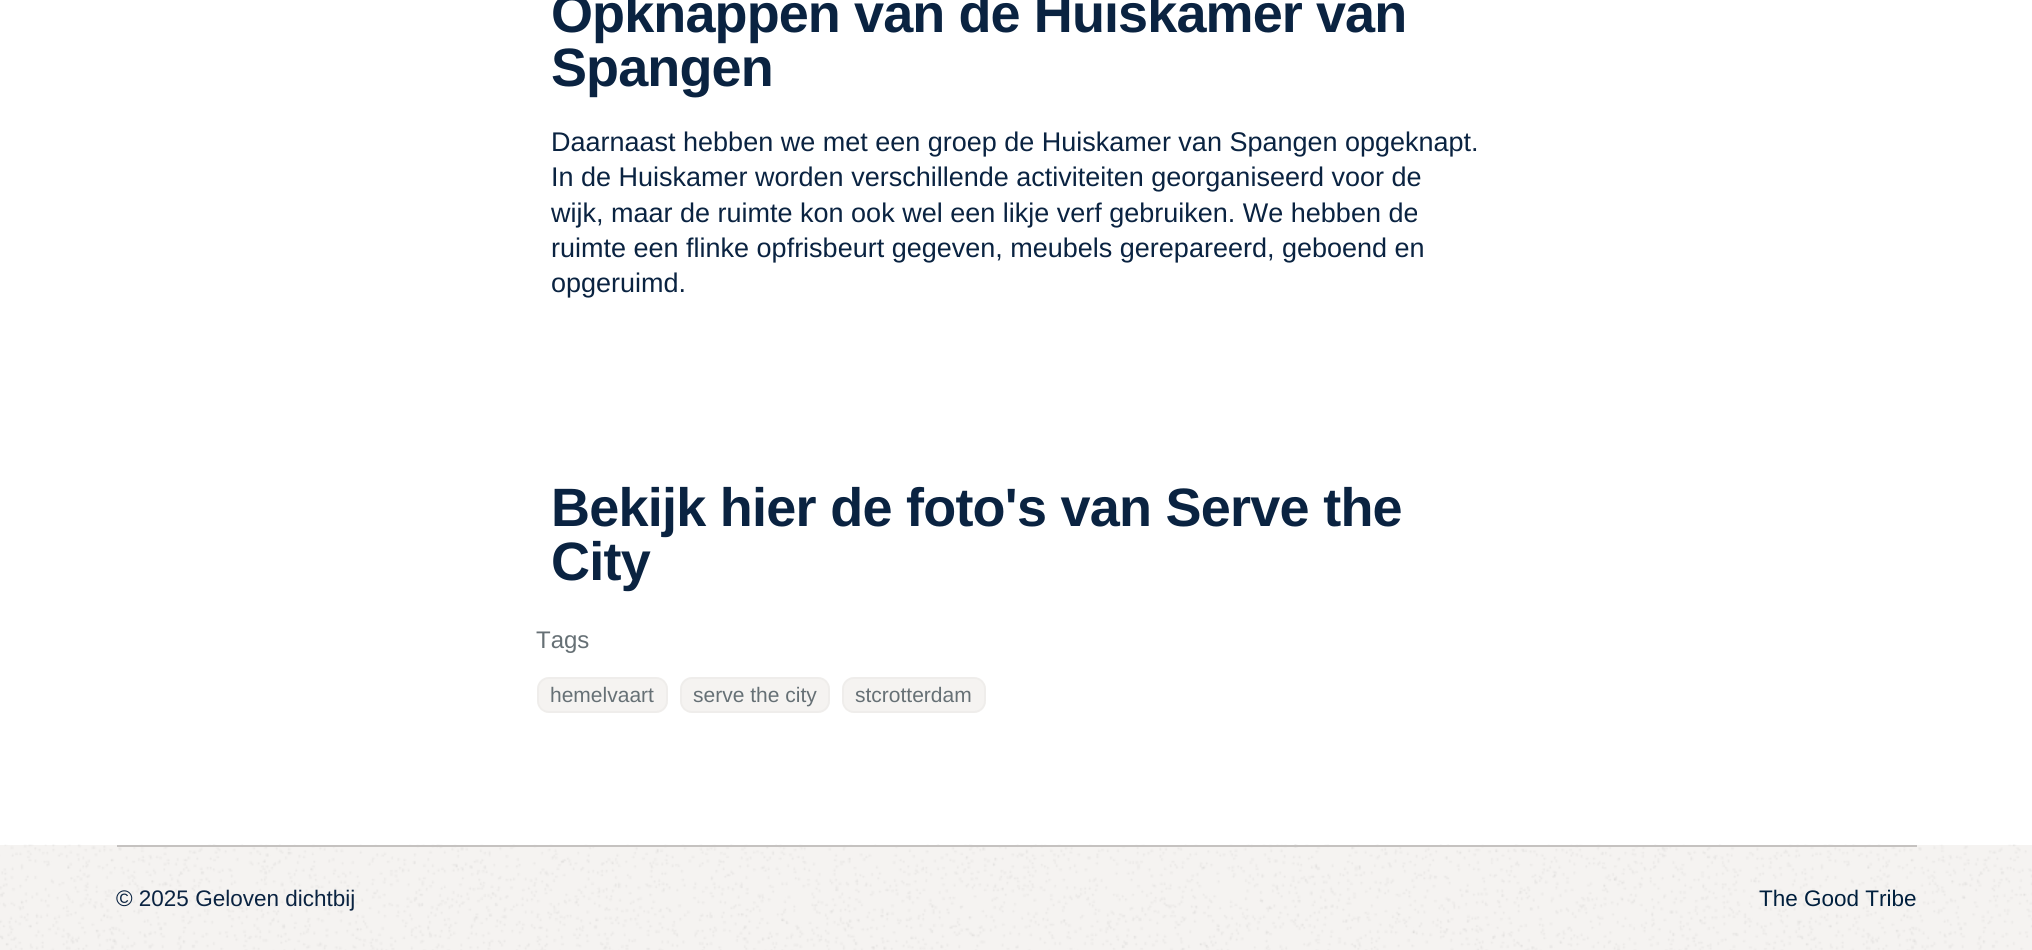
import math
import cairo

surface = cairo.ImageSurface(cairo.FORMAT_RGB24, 2032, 950)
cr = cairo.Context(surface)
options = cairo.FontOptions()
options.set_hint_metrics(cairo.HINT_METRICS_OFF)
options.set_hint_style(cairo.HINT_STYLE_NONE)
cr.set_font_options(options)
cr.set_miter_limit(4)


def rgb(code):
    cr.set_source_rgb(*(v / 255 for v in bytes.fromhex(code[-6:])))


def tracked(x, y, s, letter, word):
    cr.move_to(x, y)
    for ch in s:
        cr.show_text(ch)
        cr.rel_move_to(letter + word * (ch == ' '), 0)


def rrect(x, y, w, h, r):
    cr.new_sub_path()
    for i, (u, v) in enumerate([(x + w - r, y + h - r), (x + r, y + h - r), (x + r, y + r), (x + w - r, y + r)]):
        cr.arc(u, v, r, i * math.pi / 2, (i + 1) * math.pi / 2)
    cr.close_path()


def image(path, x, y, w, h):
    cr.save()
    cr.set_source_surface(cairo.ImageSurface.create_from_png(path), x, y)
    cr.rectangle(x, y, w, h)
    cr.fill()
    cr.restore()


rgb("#ffffff")
cr.paint()
rgb("#f5f3f1")
rrect(537, 677, 131, 36, 12)
cr.fill()
rrect(538, 678, 129, 34, 11)
cr.set_source_rgba(0.847, 0.839, 0.831, 0.21)
cr.stroke()
rgb("#f5f3f1")
rrect(680, 677, 150, 36, 12)
cr.fill()
rrect(681, 678, 148, 34, 11)
cr.set_source_rgba(0.847, 0.839, 0.831, 0.21)
cr.stroke()
rgb("#f5f3f1")
rrect(842, 677, 144, 36, 12)
cr.fill()
rrect(843, 678, 142, 34, 11)
cr.set_source_rgba(0.847, 0.839, 0.831, 0.21)
cr.stroke()
rgb("#f5f3f1")
cr.rectangle(0, 845, 2032, 105)
cr.fill()
image("img/1.png", 0, 844, 2032, 106)
rgb("#c5c2c0")
cr.rectangle(117, 845, 1800, 2)
cr.fill()
cr.select_font_face("Liberation Sans", cairo.FONT_SLANT_NORMAL, cairo.FONT_WEIGHT_BOLD)
cr.set_font_size(54)
rgb("#0a2341")
tracked(551, 32, "Opknappen van de Huiskamer van", -0.9, 0)
tracked(551, 86, "Spangen", -0.9, 0)
cr.select_font_face("Liberation Sans")
cr.set_font_size(27)
for x, y, s in [
    (551, 151, "Daarnaast hebben we met een groep de Huiskamer van Spangen opgeknapt."),
    (551, 186, "In de Huiskamer worden verschillende activiteiten georganiseerd voor de"),
    (551, 222, "wijk, maar de ruimte kon ook wel een likje verf gebruiken. We hebben de"),
    (551, 257, "ruimte een flinke opfrisbeurt gegeven, meubels gerepareerd, geboend en"),
    (551, 292, "opgeruimd."),
]:
    cr.move_to(x, y)
    cr.show_text(s)
cr.select_font_face("Liberation Sans", cairo.FONT_SLANT_NORMAL, cairo.FONT_WEIGHT_BOLD)
cr.set_font_size(54)
tracked(551, 526, "Bekijk hier de foto's van Serve the", -0.75, 0)
tracked(551, 580, "City", -0.75, 0)
cr.select_font_face("Liberation Sans")
cr.set_font_size(24)
rgb("#667075")
cr.move_to(536, 648)
cr.show_text("Tags")
cr.set_font_size(21)
for x, y, s in [
    (550, 702, "hemelvaart"),
    (693, 702, "serve the city"),
    (855, 702, "stcrotterdam"),
]:
    cr.move_to(x, y)
    cr.show_text(s)
cr.set_font_size(22.5)
rgb("#0a2341")
cr.move_to(116, 906)
cr.show_text("© 2025 Geloven dichtbij")
rgb("#001f3d")
cr.move_to(1759, 906)
cr.show_text("The Good Tribe")
surface.write_to_png("page.png")
